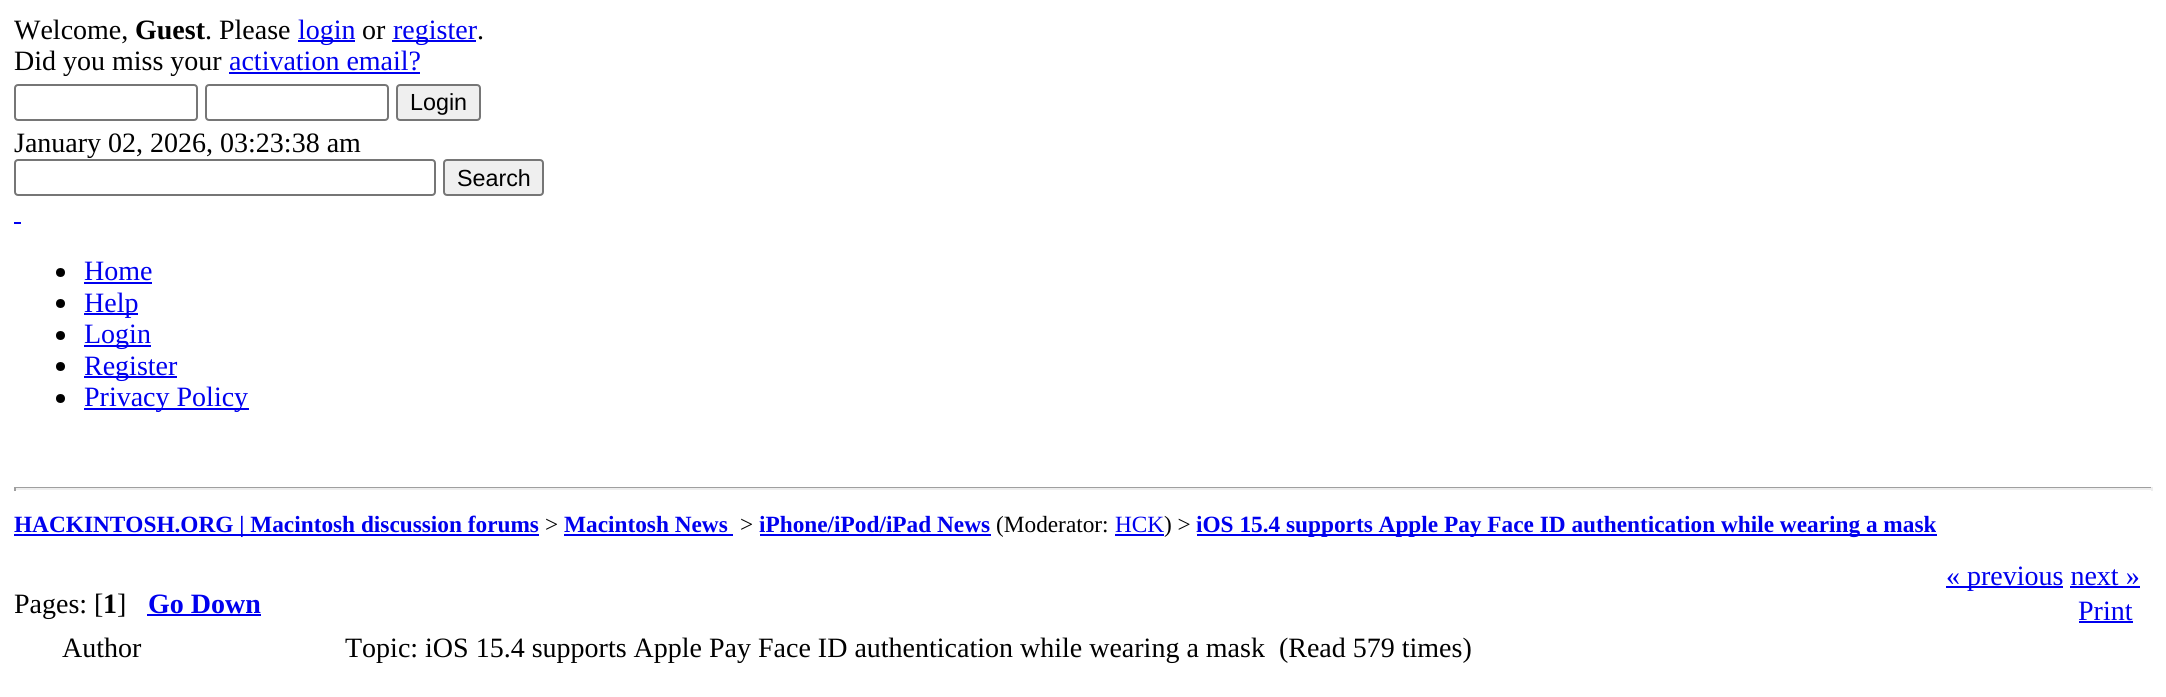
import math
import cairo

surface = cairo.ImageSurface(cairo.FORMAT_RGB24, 2166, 697)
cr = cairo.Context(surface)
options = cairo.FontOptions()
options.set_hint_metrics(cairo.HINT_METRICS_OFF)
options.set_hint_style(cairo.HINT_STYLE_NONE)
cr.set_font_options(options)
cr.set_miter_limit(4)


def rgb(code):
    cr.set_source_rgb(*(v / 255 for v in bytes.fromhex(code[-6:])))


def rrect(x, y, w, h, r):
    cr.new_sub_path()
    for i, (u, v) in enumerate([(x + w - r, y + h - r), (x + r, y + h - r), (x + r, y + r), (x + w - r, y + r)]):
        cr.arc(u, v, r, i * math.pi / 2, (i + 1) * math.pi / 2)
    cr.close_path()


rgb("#ffffff")
cr.paint()
for x, y, w, h, color in [
    (298, 40, 57, 2, "#0000ee"),
    (392, 40, 84, 2, "#0000ee"),
    (229, 72, 191, 2, "#0000ee"),
]:
    rgb(color)
    cr.rectangle(x, y, w, h)
    cr.fill()
rrect(15, 85, 182, 35, 3)
rgb("#767676")
cr.stroke()
rrect(206, 85, 182, 35, 3)
cr.stroke()
rgb("#efefef")
rrect(397, 85, 83, 35, 3)
cr.fill_preserve()
rgb("#767676")
cr.stroke()
rrect(15, 160, 420, 35, 3)
cr.stroke()
rgb("#efefef")
rrect(444, 160, 99, 35, 3)
cr.fill_preserve()
rgb("#767676")
cr.stroke()
rgb("#0000ee")
cr.rectangle(14, 222, 7, 2)
cr.fill()
rgb("#000000")
cr.arc(60.5, 272.5, 4.5, 0, 2 * math.pi)
cr.fill()
rgb("#0000ee")
cr.rectangle(84, 282, 68, 2)
cr.fill()
rgb("#000000")
cr.arc(60.5, 303.5, 4.5, 0, 2 * math.pi)
cr.fill()
rgb("#0000ee")
cr.rectangle(84, 313, 54, 2)
cr.fill()
rgb("#000000")
cr.arc(60.5, 335.5, 4.5, 0, 2 * math.pi)
cr.fill()
rgb("#0000ee")
cr.rectangle(84, 345, 67, 2)
cr.fill()
rgb("#000000")
cr.arc(60.5, 366.5, 4.5, 0, 2 * math.pi)
cr.fill()
rgb("#0000ee")
cr.rectangle(84, 376, 93, 2)
cr.fill()
rgb("#000000")
cr.arc(60.5, 398.5, 4.5, 0, 2 * math.pi)
cr.fill()
for x, y, w, h, color in [
    (84, 408, 165, 2, "#0000ee"),
    (14, 487, 2139, 1, "#9f9f9f"),
    (2151, 487, 2, 4, "#eeeeee"),
    (14, 488, 2139, 2, "#eeeeee"),
    (14, 487, 2, 4, "#9f9f9f"),
    (14, 534, 525, 2, "#0000ee"),
    (564, 534, 169, 2, "#0000ee"),
    (760, 534, 231, 2, "#0000ee"),
    (1115, 534, 49, 2, "#0000ee"),
    (1197, 534, 740, 2, "#0000ee"),
    (147, 614, 114, 2, "#0000ee"),
    (1946, 586, 117, 2, "#0000ee"),
    (2070, 586, 70, 2, "#0000ee"),
    (2079, 621, 54, 2, "#0000ee"),
]:
    rgb(color)
    cr.rectangle(x, y, w, h)
    cr.fill()
cr.select_font_face("Liberation Serif")
cr.set_font_size(28)
rgb("#000000")
cr.move_to(14, 39)
cr.show_text("Welcome,")
cr.select_font_face("Liberation Serif", cairo.FONT_SLANT_NORMAL, cairo.FONT_WEIGHT_BOLD)
cr.move_to(135, 39)
cr.show_text("Guest")
cr.select_font_face("Liberation Serif")
cr.move_to(205, 39)
cr.show_text(". Please")
rgb("#0000ee")
cr.move_to(298, 39)
cr.show_text("login")
rgb("#000000")
cr.move_to(362, 39)
cr.show_text("or")
rgb("#0000ee")
cr.move_to(393, 39)
cr.show_text("register")
rgb("#000000")
cr.move_to(477, 39)
cr.show_text(".")
cr.move_to(14, 70)
cr.show_text("Did you miss your")
rgb("#0000ee")
cr.move_to(229, 70)
cr.show_text("activation email?")
cr.select_font_face("Liberation Sans")
cr.set_font_size(23.3)
rgb("#000000")
cr.move_to(410, 110)
cr.show_text("Login")
cr.select_font_face("Liberation Serif")
cr.set_font_size(28)
cr.move_to(14, 152)
cr.show_text("January 02, 2026, 03:23:38 am")
cr.select_font_face("Liberation Sans")
cr.set_font_size(23.3)
cr.move_to(457, 186)
cr.show_text("Search")
cr.select_font_face("Liberation Serif")
cr.set_font_size(28)
rgb("#0000ee")
for x, y, s in [
    (84, 280, "Home"),
    (84, 312, "Help"),
    (84, 343, "Login"),
    (84, 375, "Register"),
    (84, 406, "Privacy Policy"),
]:
    cr.move_to(x, y)
    cr.show_text(s)
cr.select_font_face("Liberation Serif", cairo.FONT_SLANT_NORMAL, cairo.FONT_WEIGHT_BOLD)
cr.set_font_size(23.3)
cr.move_to(14, 532)
cr.show_text("HACKINTOSH.ORG | Macintosh discussion forums")
cr.select_font_face("Liberation Serif")
rgb("#000000")
cr.move_to(545, 532)
cr.show_text(">")
cr.select_font_face("Liberation Serif", cairo.FONT_SLANT_NORMAL, cairo.FONT_WEIGHT_BOLD)
rgb("#0000ee")
cr.move_to(564, 532)
cr.show_text("Macintosh News")
cr.select_font_face("Liberation Serif")
rgb("#000000")
cr.move_to(740, 532)
cr.show_text(">")
cr.select_font_face("Liberation Serif", cairo.FONT_SLANT_NORMAL, cairo.FONT_WEIGHT_BOLD)
rgb("#0000ee")
cr.move_to(759, 532)
cr.show_text("iPhone/iPod/iPad News")
cr.select_font_face("Liberation Serif")
rgb("#000000")
cr.move_to(996, 532)
cr.show_text("(Moderator:")
rgb("#0000ee")
cr.move_to(1115, 532)
cr.show_text("HCK")
rgb("#000000")
cr.move_to(1164, 532)
cr.show_text(") >")
cr.select_font_face("Liberation Serif", cairo.FONT_SLANT_NORMAL, cairo.FONT_WEIGHT_BOLD)
rgb("#0000ee")
cr.move_to(1196, 532)
cr.show_text("iOS 15.4 supports Apple Pay Face ID authentication while wearing a mask")
cr.select_font_face("Liberation Serif")
cr.set_font_size(28)
rgb("#000000")
cr.move_to(14, 613)
cr.show_text("Pages: [")
cr.select_font_face("Liberation Serif", cairo.FONT_SLANT_NORMAL, cairo.FONT_WEIGHT_BOLD)
cr.move_to(103, 613)
cr.show_text("1")
cr.select_font_face("Liberation Serif")
cr.move_to(117, 613)
cr.show_text("]")
cr.select_font_face("Liberation Serif", cairo.FONT_SLANT_NORMAL, cairo.FONT_WEIGHT_BOLD)
rgb("#0000ee")
cr.move_to(148, 613)
cr.show_text("Go Down")
cr.select_font_face("Liberation Serif")
cr.move_to(1946, 585)
cr.show_text("« previous next »")
cr.move_to(2078, 620)
cr.show_text("Print")
rgb("#000000")
cr.move_to(62, 657)
cr.show_text("Author")
cr.move_to(345, 657)
cr.show_text("Topic: iOS 15.4 supports Apple Pay Face ID authentication while wearing a mask  (Read 579 times)")
surface.write_to_png("page.png")
